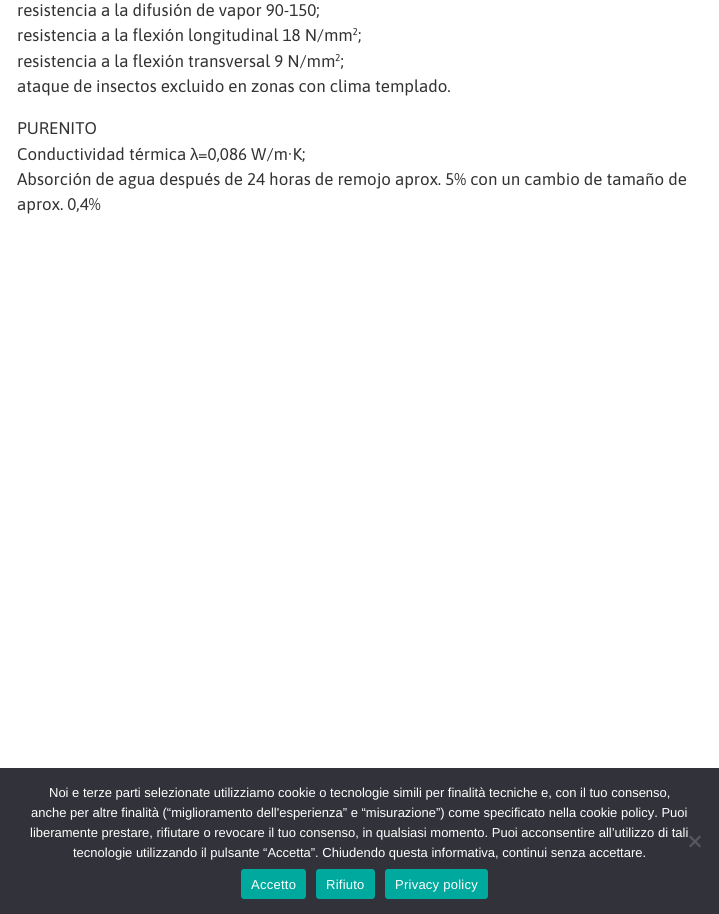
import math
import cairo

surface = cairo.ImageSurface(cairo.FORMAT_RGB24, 719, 914)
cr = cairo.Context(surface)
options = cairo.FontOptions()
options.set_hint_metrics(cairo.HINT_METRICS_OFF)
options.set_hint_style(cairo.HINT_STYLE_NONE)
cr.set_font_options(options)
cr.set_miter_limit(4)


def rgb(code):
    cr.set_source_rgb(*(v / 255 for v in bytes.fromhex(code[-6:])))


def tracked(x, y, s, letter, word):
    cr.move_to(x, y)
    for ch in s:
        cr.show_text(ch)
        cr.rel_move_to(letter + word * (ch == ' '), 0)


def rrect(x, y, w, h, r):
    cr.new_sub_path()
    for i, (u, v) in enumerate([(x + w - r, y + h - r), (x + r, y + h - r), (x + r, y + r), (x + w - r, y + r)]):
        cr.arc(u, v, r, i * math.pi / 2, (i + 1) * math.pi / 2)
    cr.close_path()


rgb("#ffffff")
cr.paint()
rgb("#32323a")
cr.rectangle(0, 768, 719, 146)
cr.fill()
rgb("#59595d")
cr.new_path()
cr.move_to(699.5, 835.5)
cr.line_to(701, 837)
cr.line_to(690.5, 847.5)
cr.line_to(689, 846)
cr.close_path()
cr.fill()
cr.new_path()
cr.move_to(689, 837)
cr.line_to(690.5, 835.5)
cr.line_to(701, 846)
cr.line_to(699.5, 847.5)
cr.close_path()
cr.fill()
rgb("#00a99d")
rrect(241, 869, 65, 30, 3)
cr.fill()
rrect(316, 869, 59, 30, 3)
cr.fill()
rrect(385, 869, 103, 30, 3)
cr.fill()
cr.select_font_face("Asap")
cr.set_font_size(16.9)
rgb("#333333")
for x, y, s in [
    (17, 16, "resistencia a la difusión de vapor 90-150;"),
    (17, 41, "resistencia a la flexión longitudinal 18 N/mm²;"),
    (17, 67, "resistencia a la flexión transversal 9 N/mm²;"),
    (17, 92, "ataque de insectos excluido en zonas con clima templado."),
    (17, 134, "PURENITO"),
    (17, 160, "Conductividad térmica"),
]:
    cr.move_to(x, y)
    cr.show_text(s)
cr.select_font_face("Liberation Sans")
cr.move_to(190, 160)
cr.show_text("λ")
cr.select_font_face("Asap")
for x, y, s in [
    (198, 160, "=0,086 W/m·K;"),
    (17, 185, "Absorción de agua después de 24 horas de remojo aprox. 5% con un cambio de tamaño de"),
    (17, 210, "aprox. 0,4%"),
]:
    cr.move_to(x, y)
    cr.show_text(s)
cr.select_font_face("Liberation Sans")
cr.set_font_size(13)
rgb("#ffffff")
for x, y, s in [
    (49, 797, "Noi e terze parti selezionate utilizziamo cookie o tecnologie simili per finalità tecniche e, con il tuo consenso,"),
    (31, 817, "anche per altre finalità (“miglioramento dell'esperienza” e “misurazione”) come specificato nella cookie policy. Puoi"),
    (30, 837, "liberamente prestare, rifiutare o revocare il tuo consenso, in qualsiasi momento. Puoi acconsentire all’utilizzo di tali"),
    (73, 857, "tecnologie utilizzando il pulsante “Accetta”. Chiudendo questa informativa, continui senza accettare."),
]:
    cr.move_to(x, y)
    cr.show_text(s)
for x, y, s in [
    (251, 889, "Accetto"),
    (326, 889, "Rifiuto"),
    (395, 889, "Privacy policy"),
]:
    tracked(x, y, s, 0.25, 0)
surface.write_to_png("page.png")
